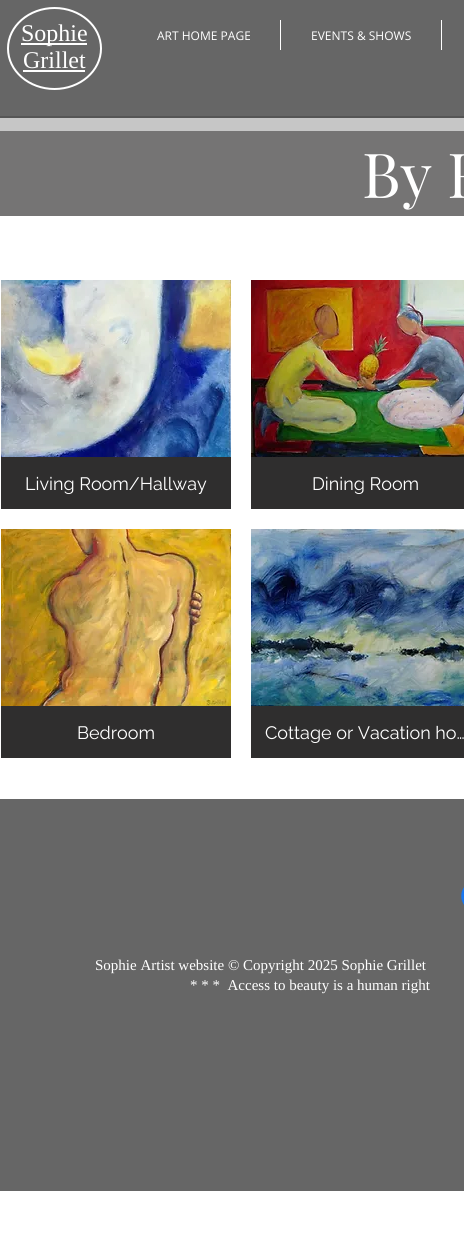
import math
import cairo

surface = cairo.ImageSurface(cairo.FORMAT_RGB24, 464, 1251)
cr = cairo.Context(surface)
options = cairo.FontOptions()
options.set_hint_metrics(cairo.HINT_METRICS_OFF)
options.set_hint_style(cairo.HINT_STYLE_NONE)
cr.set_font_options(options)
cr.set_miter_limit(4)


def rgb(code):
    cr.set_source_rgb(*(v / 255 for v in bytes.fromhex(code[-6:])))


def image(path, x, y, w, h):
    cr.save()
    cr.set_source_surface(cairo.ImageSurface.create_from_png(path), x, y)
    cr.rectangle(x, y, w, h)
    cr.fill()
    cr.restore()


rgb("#ffffff")
cr.paint()
for x, y, w, h, color in [
    (0, 118, 464, 13, "#c6c6c6"),
    (0, 0, 464, 116, "#666666"),
    (0, 116, 464, 2, "#555555"),
]:
    rgb(color)
    cr.rectangle(x, y, w, h)
    cr.fill()
cr.new_path()
cr.move_to(54.5, 8)
cr.curve_to(80, 8, 101, 26, 101, 48.5)
cr.curve_to(101, 71, 80, 89, 54.5, 89)
cr.curve_to(29, 89, 8, 71, 8, 48.5)
cr.curve_to(8, 26, 29, 8, 54.5, 8)
cr.close_path()
rgb("#ffffff")
cr.stroke()
for x, y, w, h, color in [
    (21, 43, 66, 2, "#ffffff"),
    (23, 70, 62, 2, "#ffffff"),
    (280, 20, 1, 30, "#ffffff"),
    (441, 20, 1, 30, "#ffffff"),
    (0, 131, 464, 85, "#757474"),
]:
    rgb(color)
    cr.rectangle(x, y, w, h)
    cr.fill()
image("img/1.png", 1, 280, 230, 177)
rgb("#2f2e2e")
cr.rectangle(1, 457, 230, 52)
cr.fill()
image("img/2.png", 251, 280, 213, 177)
cr.rectangle(251, 457, 213, 52)
cr.fill()
image("img/3.png", 1, 529, 230, 177)
cr.rectangle(1, 706, 230, 52)
cr.fill()
image("img/4.png", 251, 529, 213, 177)
cr.rectangle(251, 706, 213, 52)
cr.fill()
rgb("#666666")
cr.rectangle(0, 799, 464, 392)
cr.fill()
image("img/5.png", 461, 887, 3, 18)
cr.select_font_face("Liberation Serif")
cr.set_font_size(24)
rgb("#ffffff")
cr.move_to(21, 41)
cr.show_text("Sophie")
cr.move_to(23, 68)
cr.show_text("Grillet")
cr.select_font_face("Open Sans")
cr.set_font_size(12)
cr.move_to(157, 40)
cr.show_text("ART HOME PAGE")
cr.move_to(311, 40)
cr.show_text("EVENTS & SHOWS")
cr.select_font_face("Playfair Display")
cr.set_font_size(62)
cr.move_to(362, 198)
cr.show_text("By R")
cr.select_font_face("Raleway")
cr.set_font_size(18)
for x, y, s in [
    (25, 490, "Living Room/Hallway"),
    (312, 490, "Dining Room"),
    (77, 739, "Bedroom"),
    (265, 739, "Cottage or Vacation ho…"),
]:
    cr.move_to(x, y)
    cr.show_text(s)
cr.select_font_face("Liberation Serif")
cr.set_font_size(15)
cr.move_to(95, 970)
cr.show_text("Sophie Artist website © Copyright 2025 Sophie Grillet")
cr.move_to(190, 990)
cr.show_text("* * *  Access to beauty is a human right")
surface.write_to_png("page.png")
